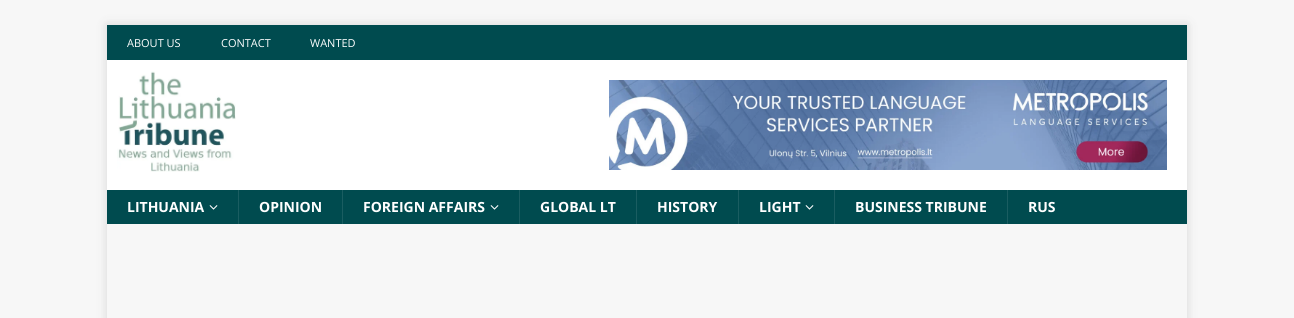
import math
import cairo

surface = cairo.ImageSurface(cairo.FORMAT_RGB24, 1294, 318)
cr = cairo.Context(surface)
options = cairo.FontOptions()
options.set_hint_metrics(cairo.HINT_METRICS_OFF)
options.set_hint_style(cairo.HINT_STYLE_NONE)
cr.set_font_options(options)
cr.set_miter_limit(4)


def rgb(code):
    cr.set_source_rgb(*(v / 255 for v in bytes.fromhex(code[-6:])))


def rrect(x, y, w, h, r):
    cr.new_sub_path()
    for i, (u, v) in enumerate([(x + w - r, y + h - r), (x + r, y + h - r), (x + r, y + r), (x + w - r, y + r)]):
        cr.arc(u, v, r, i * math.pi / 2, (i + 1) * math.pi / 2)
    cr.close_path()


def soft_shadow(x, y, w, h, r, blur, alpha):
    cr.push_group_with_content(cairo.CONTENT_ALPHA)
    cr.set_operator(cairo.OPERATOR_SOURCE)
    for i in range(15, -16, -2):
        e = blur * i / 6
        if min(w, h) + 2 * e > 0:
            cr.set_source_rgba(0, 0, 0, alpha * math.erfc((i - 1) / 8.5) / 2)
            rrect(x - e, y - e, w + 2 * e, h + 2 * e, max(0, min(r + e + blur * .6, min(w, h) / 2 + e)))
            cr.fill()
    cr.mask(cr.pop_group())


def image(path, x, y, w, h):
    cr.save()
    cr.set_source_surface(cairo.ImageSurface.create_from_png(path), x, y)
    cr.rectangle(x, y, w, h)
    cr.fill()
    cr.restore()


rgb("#f7f7f7")
cr.paint()
cr.save()
cr.set_fill_rule(cairo.FILL_RULE_EVEN_ODD)
cr.new_path()
cr.move_to(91, 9)
cr.line_to(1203, 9)
cr.line_to(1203, 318)
cr.line_to(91, 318)
cr.close_path()
cr.move_to(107, 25)
cr.line_to(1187, 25)
cr.line_to(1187, 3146)
cr.line_to(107, 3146)
cr.close_path()
cr.clip()
rgb("#323232")
soft_shadow(107, 25, 1080, 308, 0, 5, 0.17)
cr.restore()
rgb("#004b4f")
cr.rectangle(107, 25, 1080, 35)
cr.fill()
rgb("#ffffff")
cr.rectangle(107, 60, 1080, 130)
cr.fill()
image("img/1.png", 117, 71, 119, 101)
image("img/2.png", 609, 80, 558, 90)
rgb("#004b4f")
cr.rectangle(107, 190, 1080, 34)
cr.fill()
image("img/3.png", 209, 205, 9, 5)
rgb("#1a5d61")
cr.rectangle(238, 190, 1, 34)
cr.fill()
cr.rectangle(342, 190, 1, 34)
cr.fill()
image("img/3.png", 490, 205, 9, 5)
for x, y, w, h, color in [
    (519, 190, 1, 34, "#1a5d61"),
    (636, 190, 1, 34, "#1a5d61"),
    (738, 190, 1, 34, "#1a5d61"),
]:
    rgb(color)
    cr.rectangle(x, y, w, h)
    cr.fill()
image("img/3.png", 805, 205, 9, 5)
cr.rectangle(834, 190, 1, 34)
cr.fill()
cr.rectangle(1007, 190, 1, 34)
cr.fill()
cr.select_font_face("Open Sans")
cr.set_font_size(11)
rgb("#ffffff")
for x, y, s in [
    (127, 47, "ABOUT US"),
    (221, 47, "CONTACT"),
    (310, 47, "WANTED"),
]:
    cr.move_to(x, y)
    cr.show_text(s)
cr.select_font_face("Open Sans", cairo.FONT_SLANT_NORMAL, cairo.FONT_WEIGHT_BOLD)
cr.set_font_size(14)
for x, y, s in [
    (127, 212, "LITHUANIA"),
    (259, 212, "OPINION"),
    (363, 212, "FOREIGN AFFAIRS"),
    (540, 212, "GLOBAL LT"),
    (657, 212, "HISTORY"),
    (759, 212, "LIGHT"),
    (855, 212, "BUSINESS TRIBUNE"),
    (1028, 212, "RUS"),
]:
    cr.move_to(x, y)
    cr.show_text(s)
surface.write_to_png("page.png")
